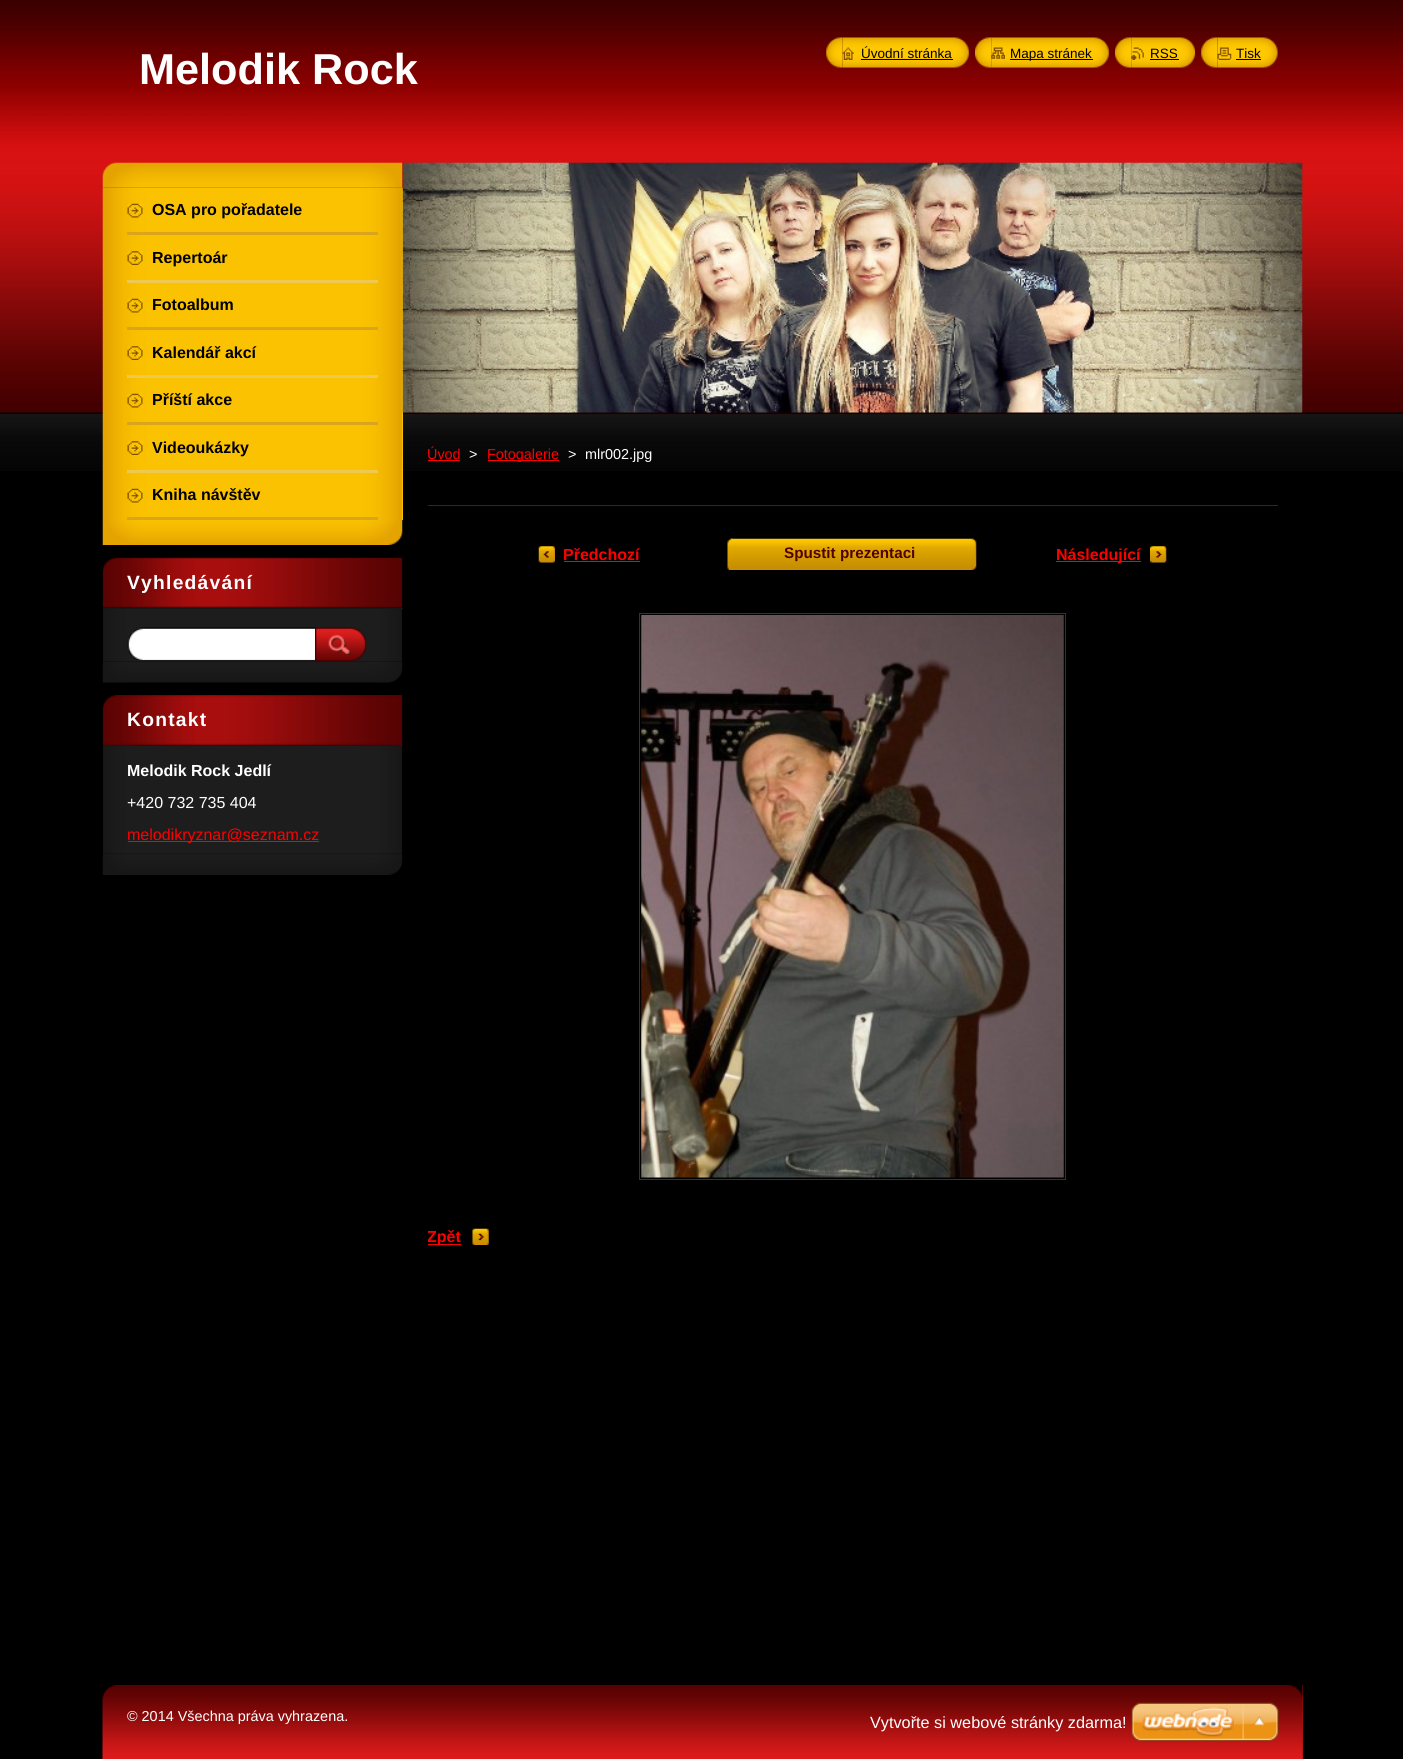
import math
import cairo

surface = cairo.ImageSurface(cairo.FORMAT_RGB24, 1403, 1759)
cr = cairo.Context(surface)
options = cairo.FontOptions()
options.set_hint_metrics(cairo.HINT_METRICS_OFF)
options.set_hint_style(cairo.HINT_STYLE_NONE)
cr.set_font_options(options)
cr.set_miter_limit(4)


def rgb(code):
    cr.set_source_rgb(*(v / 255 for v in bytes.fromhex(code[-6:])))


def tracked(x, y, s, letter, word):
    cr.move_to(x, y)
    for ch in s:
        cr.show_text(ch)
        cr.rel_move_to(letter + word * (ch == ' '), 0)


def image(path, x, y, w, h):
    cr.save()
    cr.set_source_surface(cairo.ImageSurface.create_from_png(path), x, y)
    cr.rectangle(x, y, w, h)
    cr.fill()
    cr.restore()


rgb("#000000")
cr.paint()
image("img/1.png", 0, 0, 1403, 471)
image("img/2.png", 826, 37, 17, 31)
image("img/3.png", 842, 37, 127, 31)
image("img/4.png", 842, 47, 12, 13)
rgb("#000000")
cr.rectangle(861, 59, 92, 1)
cr.fill()
image("img/5.png", 975, 37, 17, 31)
image("img/6.png", 991, 37, 118, 31)
image("img/7.png", 991, 47, 14, 12)
cr.rectangle(1010, 59, 83, 1)
cr.fill()
image("img/5.png", 1115, 37, 17, 31)
image("img/8.png", 1131, 37, 64, 31)
image("img/9.png", 1131, 47, 13, 13)
cr.rectangle(1150, 59, 29, 1)
cr.fill()
image("img/2.png", 1201, 37, 17, 31)
image("img/10.png", 1217, 37, 61, 31)
image("img/11.png", 1217, 47, 15, 13)
cr.rectangle(1236, 59, 25, 1)
cr.fill()
image("img/12.png", 102, 162, 301, 26)
image("img/13.png", 102, 520, 301, 25)
rgb("#ffc800")
cr.rectangle(402, 188, 1, 332)
cr.fill()
image("img/14.png", 102, 187, 301, 333)
rgb("#daa51c")
cr.rectangle(127, 232, 251, 3)
cr.fill()
image("img/15.png", 127, 203, 16, 15)
rgb("#efc84f")
cr.rectangle(127, 280, 251, 3)
cr.fill()
image("img/16.png", 127, 251, 16, 14)
rgb("#daa51c")
cr.rectangle(127, 327, 251, 3)
cr.fill()
image("img/15.png", 127, 298, 16, 15)
rgb("#efc84f")
cr.rectangle(127, 375, 251, 3)
cr.fill()
image("img/16.png", 127, 346, 16, 14)
rgb("#daa51c")
cr.rectangle(127, 422, 251, 3)
cr.fill()
image("img/15.png", 127, 393, 16, 15)
rgb("#efc84f")
cr.rectangle(127, 470, 251, 3)
cr.fill()
image("img/16.png", 127, 441, 16, 14)
rgb("#daa51c")
cr.rectangle(127, 517, 251, 3)
cr.fill()
image("img/15.png", 127, 488, 16, 15)
image("img/17.png", 102, 661, 301, 22)
image("img/19.png", 103, 607, 299, 54)
image("img/18.png", 102, 557, 301, 51)
rgb("#171717")
cr.rectangle(103, 608, 300, 1)
cr.fill()
image("img/20.png", 127, 627, 190, 33)
image("img/21.png", 315, 627, 52, 34)
image("img/22.png", 102, 853, 301, 22)
image("img/23.png", 102, 695, 301, 50)
image("img/24.png", 103, 746, 299, 108)
cr.rectangle(103, 745, 300, 1)
cr.fill()
rgb("#ff0000")
cr.rectangle(128, 841, 191, 1)
cr.fill()
image("img/25.png", 402, 162, 901, 251)
for x, y, w, h, color in [
    (428, 460, 32, 1, "#ff0000"),
    (488, 460, 71, 1, "#ff0000"),
    (428, 505, 850, 1, "#2a2a2a"),
]:
    rgb(color)
    cr.rectangle(x, y, w, h)
    cr.fill()
image("img/26.png", 538, 546, 17, 17)
rgb("#ff0000")
cr.rectangle(564, 561, 76, 1)
cr.fill()
image("img/27.png", 727, 538, 6, 32)
image("img/28.png", 731, 538, 246, 32)
image("img/29.png", 1150, 546, 17, 17)
cr.rectangle(1056, 561, 85, 1)
cr.fill()
cr.rectangle(639.5, 613.5, 426, 566)
rgb("#333333")
cr.set_line_width(1)
cr.stroke()
image("img/30.png", 641, 615, 423, 563)
image("img/31.png", 472, 1228, 17, 17)
rgb("#ff0000")
cr.rectangle(428, 1244, 33, 1)
cr.fill()
rgb("#a31010")
cr.rectangle(1302, 1685, 1, 74)
cr.fill()
image("img/32.png", 102, 1685, 1201, 74)
image("img/33.png", 1131, 1702, 148, 40)
cr.select_font_face("Liberation Sans", cairo.FONT_SLANT_NORMAL, cairo.FONT_WEIGHT_BOLD)
cr.set_font_size(43.25)
rgb("#ffffff")
cr.move_to(139, 84)
cr.show_text("Melodik Rock")
cr.select_font_face("Liberation Sans")
cr.set_font_size(13.5)
rgb("#000000")
for x, y, s in [
    (861, 58, "Úvodní stránka"),
    (1010, 58, "Mapa stránek"),
    (1150, 58, "RSS"),
    (1236, 58, "Tisk"),
]:
    cr.move_to(x, y)
    cr.show_text(s)
cr.select_font_face("Liberation Sans", cairo.FONT_SLANT_NORMAL, cairo.FONT_WEIGHT_BOLD)
cr.set_font_size(16)
for x, y, s in [
    (152, 215, "OSA pro pořadatele"),
    (152, 263, "Repertoár"),
    (152, 310, "Fotoalbum"),
    (152, 358, "Kalendář akcí"),
    (152, 405, "Příští akce"),
    (152, 453, "Videoukázky"),
    (152, 500, "Kniha návštěv"),
]:
    cr.move_to(x, y)
    cr.show_text(s)
cr.set_font_size(19.25)
rgb("#ffffff")
tracked(127, 589, "Vyhledávání", 1.25, 0)
tracked(127, 726, "Kontakt", 1.25, 0)
cr.set_font_size(16)
cr.move_to(127, 776)
cr.show_text("Melodik Rock Jedlí")
cr.select_font_face("Liberation Sans")
cr.move_to(127, 808)
cr.show_text("+420 732 735 404")
rgb("#ff0000")
cr.move_to(127, 840)
cr.show_text("melodikryznar@seznam.cz")
cr.set_font_size(14.4)
cr.move_to(427, 459)
cr.show_text("Úvod")
rgb("#ffffff")
cr.move_to(469, 459)
cr.show_text(">")
rgb("#ff0000")
cr.move_to(487, 459)
cr.show_text("Fotogalerie")
rgb("#ffffff")
cr.move_to(568, 459)
cr.show_text(">")
cr.move_to(585, 459)
cr.show_text("mlr002.jpg")
cr.select_font_face("Liberation Sans", cairo.FONT_SLANT_NORMAL, cairo.FONT_WEIGHT_BOLD)
cr.set_font_size(16)
rgb("#ff0000")
cr.move_to(563, 560)
cr.show_text("Předchozí")
cr.set_font_size(15.25)
rgb("#550000")
cr.move_to(784, 558)
cr.show_text("Spustit prezentaci")
cr.set_font_size(16)
rgb("#ff0000")
cr.move_to(1056, 560)
cr.show_text("Následující")
cr.save()
cr.rectangle(428, 519, 850, 727)
cr.clip()
cr.move_to(427, 1242)
cr.show_text("Zpět")
cr.restore()
cr.select_font_face("Liberation Sans")
cr.set_font_size(14.4)
rgb("#ffffff")
cr.move_to(127, 1721)
cr.show_text("© 2014 Všechna práva vyhrazena.")
cr.set_font_size(16.25)
cr.move_to(870, 1728)
cr.show_text("Vytvořte si webové stránky zdarma!")
surface.write_to_png("page.png")
